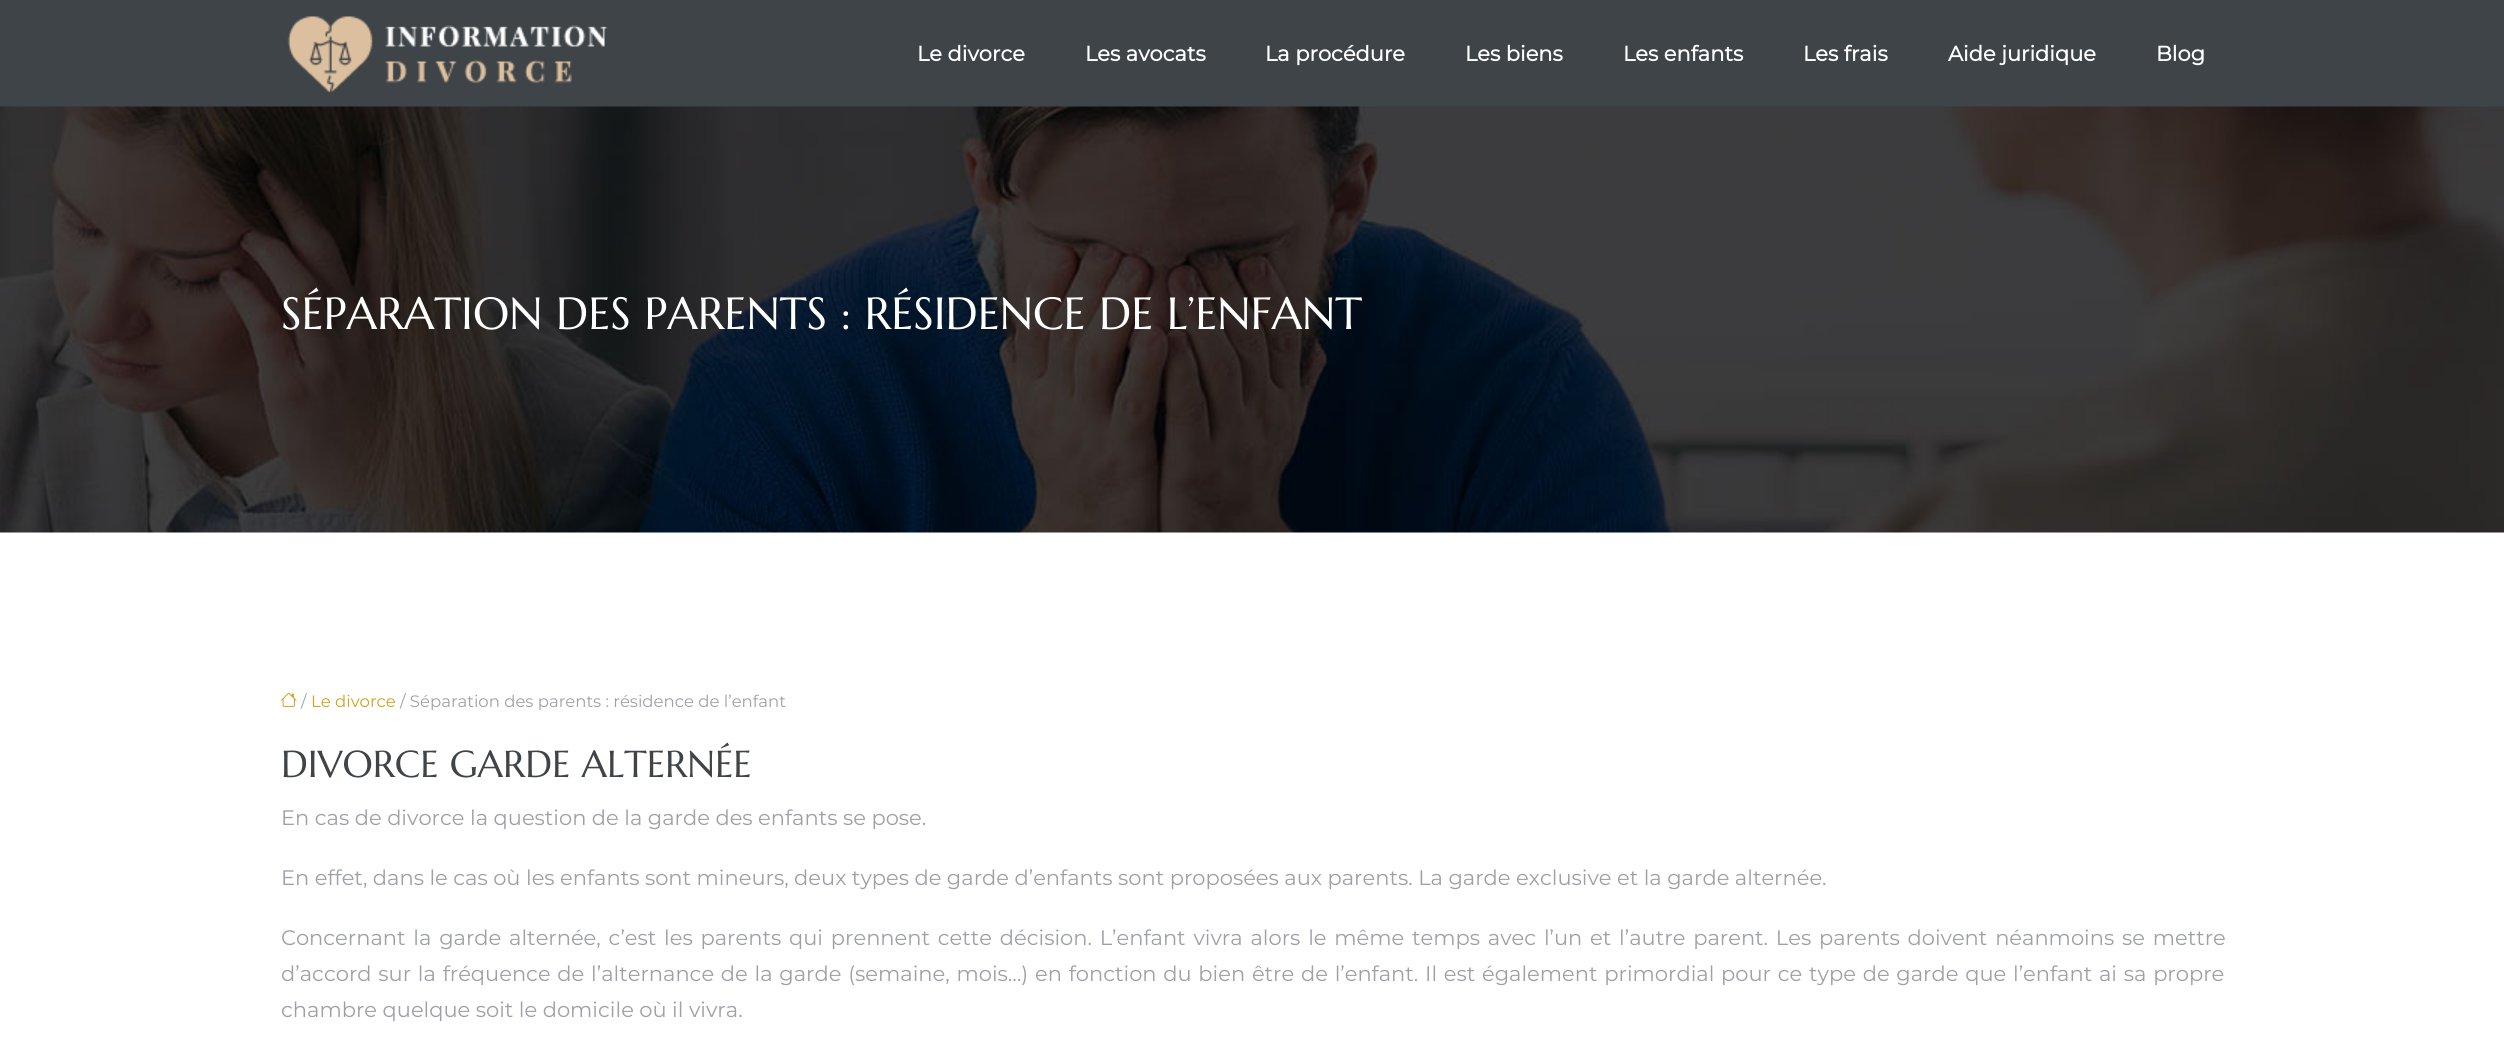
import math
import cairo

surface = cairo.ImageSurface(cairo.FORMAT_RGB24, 2504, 1056)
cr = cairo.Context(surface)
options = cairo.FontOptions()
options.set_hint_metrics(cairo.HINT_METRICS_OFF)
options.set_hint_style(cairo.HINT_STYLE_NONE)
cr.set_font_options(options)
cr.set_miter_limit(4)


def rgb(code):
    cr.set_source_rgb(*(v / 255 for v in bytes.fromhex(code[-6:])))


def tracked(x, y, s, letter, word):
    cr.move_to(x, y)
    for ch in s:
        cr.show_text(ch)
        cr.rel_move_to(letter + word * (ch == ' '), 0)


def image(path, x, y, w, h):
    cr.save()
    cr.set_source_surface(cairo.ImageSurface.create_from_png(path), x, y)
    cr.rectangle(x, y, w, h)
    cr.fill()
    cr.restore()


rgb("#ffffff")
cr.paint()
rgb("#3f4448")
cr.rectangle(0, 0, 2504, 107)
cr.fill()
image("img/1.png", 287, 16, 321, 77)
image("img/2.png", 0, 106, 2504, 427)
image("img/3.png", 281, 692, 16, 15)
cr.select_font_face("Montserrat", cairo.FONT_SLANT_NORMAL, cairo.FONT_WEIGHT_BOLD)
cr.set_font_size(21)
rgb("#ffffff")
for x, y, s in [
    (917, 61, "Le divorce"),
    (1085, 61, "Les avocats"),
    (1265, 61, "La procédure"),
    (1465, 61, "Les biens"),
    (1623, 61, "Les enfants"),
    (1803, 61, "Les frais"),
    (1948, 61, "Aide juridique"),
    (2156, 61, "Blog"),
]:
    cr.move_to(x, y)
    cr.show_text(s)
cr.select_font_face("Marcellus SC")
cr.set_font_size(45)
cr.move_to(281, 329)
cr.show_text("SÉPARATION DES PARENTS : RÉSIDENCE DE L’ENFANT")
cr.select_font_face("Montserrat Thin")
cr.set_font_size(16.5)
rgb("#9ea0a6")
cr.move_to(301, 707)
cr.show_text("/")
rgb("#d4a120")
cr.move_to(311, 707)
cr.show_text("Le divorce")
rgb("#9ea0a6")
cr.move_to(400, 707)
cr.show_text("/ Séparation des parents : résidence de l’enfant")
cr.select_font_face("Marcellus SC")
cr.set_font_size(37.5)
rgb("#3f4448")
cr.move_to(281, 777)
cr.show_text("DIVORCE GARDE ALTERNÉE")
cr.select_font_face("Montserrat Thin")
cr.set_font_size(21)
rgb("#9ea0a6")
cr.move_to(281, 825)
cr.show_text("En cas de divorce la question de la garde des enfants se pose.")
cr.move_to(281, 885)
cr.show_text("En effet, dans le cas où les enfants sont mineurs, deux types de garde d’enfants sont proposées aux parents. La garde exclusive et la garde alternée.")
tracked(281, 945, "Concernant la garde alternée, c’est les parents qui prennent cette décision. L’enfant vivra alors le même temps avec l’un et l’autre parent. Les parents doivent néanmoins se mettre", 0, 2.3)
tracked(281, 981, "d’accord sur la fréquence de l’alternance de la garde (semaine, mois…) en fonction du bien être de l’enfant. Il est également primordial pour ce type de garde que l’enfant ai sa propre", 0, 1.25)
cr.move_to(281, 1017)
cr.show_text("chambre quelque soit le domicile où il vivra.")
surface.write_to_png("page.png")
